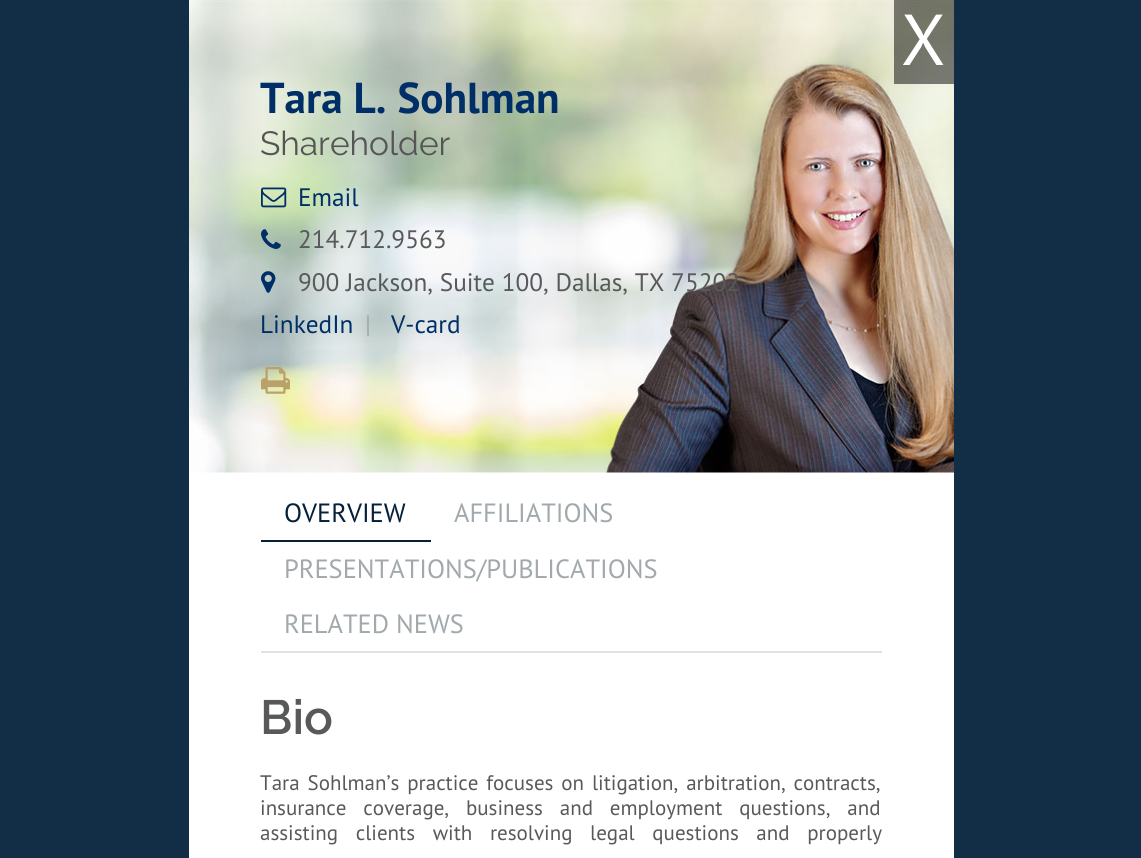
import math
import cairo

surface = cairo.ImageSurface(cairo.FORMAT_RGB24, 1141, 858)
cr = cairo.Context(surface)
options = cairo.FontOptions()
options.set_hint_metrics(cairo.HINT_METRICS_OFF)
options.set_hint_style(cairo.HINT_STYLE_NONE)
cr.set_font_options(options)
cr.set_miter_limit(4)


def rgb(code):
    cr.set_source_rgb(*(v / 255 for v in bytes.fromhex(code[-6:])))


def tracked(x, y, s, letter, word):
    cr.move_to(x, y)
    for ch in s:
        cr.show_text(ch)
        cr.rel_move_to(letter + word * (ch == ' '), 0)


def image(path, x, y, w, h):
    cr.save()
    cr.set_source_surface(cairo.ImageSurface.create_from_png(path), x, y)
    cr.rectangle(x, y, w, h)
    cr.fill()
    cr.restore()


rgb("#122e46")
cr.paint()
rgb("#ffffff")
cr.rectangle(189, 472, 765, 386)
cr.fill()
image("img/1.png", 189, 0, 765, 473)
cr.set_source_rgba(0, 0, 0, 0.5)
cr.rectangle(894, 0, 60, 84)
cr.fill()
image("img/2.png", 261, 187, 26, 21)
image("img/3.png", 261, 229, 20, 20)
image("img/4.png", 261, 271, 15, 22)
image("img/5.png", 261, 367, 29, 27)
rgb("#dee2e6")
cr.rectangle(261, 651, 621, 2)
cr.fill()
rgb("#04213a")
cr.rectangle(261, 540, 170, 2)
cr.fill()
cr.select_font_face("PT Sans")
cr.set_font_size(72)
rgb("#ffffff")
cr.move_to(901, 65)
cr.show_text("X")
cr.select_font_face("PT Sans", cairo.FONT_SLANT_NORMAL, cairo.FONT_WEIGHT_BOLD)
cr.set_font_size(43.25)
rgb("#002e66")
cr.move_to(260, 113)
cr.show_text("Tara L. Sohlman")
cr.select_font_face("Raleway")
cr.set_font_size(33.5)
rgb("#555555")
cr.move_to(260, 155)
cr.show_text("Shareholder")
cr.select_font_face("PT Sans")
cr.set_font_size(25.25)
rgb("#002e66")
cr.move_to(298, 206)
cr.show_text("Email")
rgb("#58595b")
cr.move_to(298, 248)
cr.show_text("214.712.9563")
cr.move_to(298, 291)
cr.show_text("900 Jackson, Suite 100, Dallas, TX 75202")
rgb("#002e66")
cr.move_to(260, 333)
cr.show_text("LinkedIn")
rgb("#a2a9ad")
cr.move_to(365, 333)
cr.show_text("|")
rgb("#002e66")
cr.move_to(391, 333)
cr.show_text("V-card")
cr.set_font_size(26.4)
rgb("#04213a")
cr.move_to(284, 522)
cr.show_text("OVERVIEW")
rgb("#a2a9ad")
for x, y, s in [
    (454, 522, "AFFILIATIONS"),
    (284, 578, "PRESENTATIONS/PUBLICATIONS"),
    (284, 633, "RELATED NEWS"),
]:
    cr.move_to(x, y)
    cr.show_text(s)
cr.select_font_face("Raleway SemiBold")
cr.set_font_size(48)
rgb("#58595b")
cr.move_to(260, 734)
cr.show_text("Bio")
cr.select_font_face("PT Sans")
cr.set_font_size(21)
tracked(260, 790, "Tara Sohlman’s practice focuses on litigation, arbitration, contracts,", 0, 2.25)
tracked(260, 815, "insurance coverage, business and employment questions, and", 0, 11.25)
tracked(260, 840, "assisting clients with resolving legal questions and properly", 0, 12)
surface.write_to_png("page.png")
